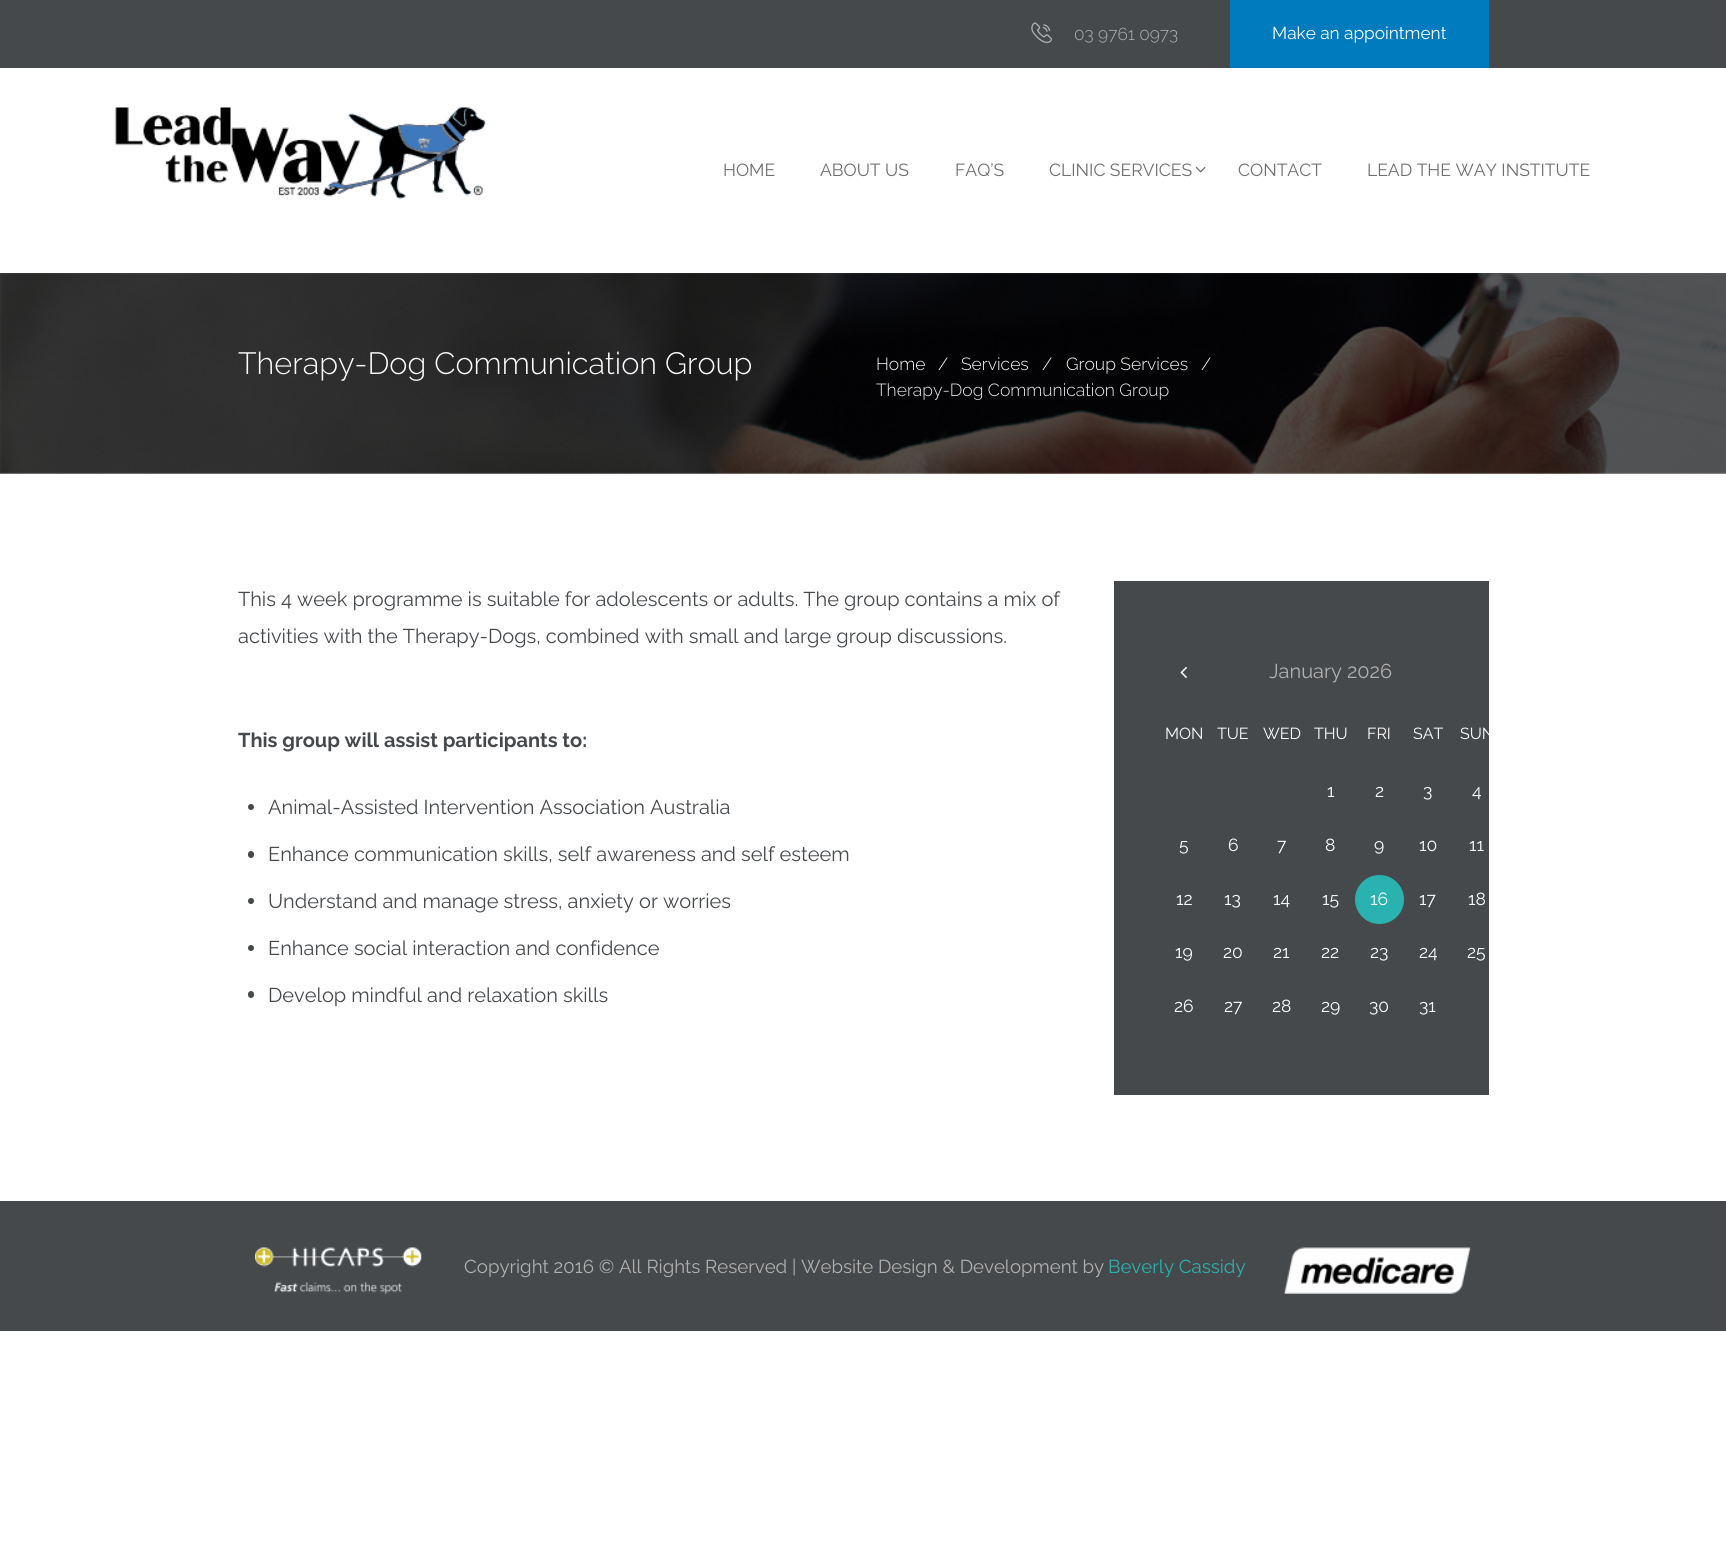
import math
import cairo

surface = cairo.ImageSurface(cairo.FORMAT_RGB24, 1726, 1541)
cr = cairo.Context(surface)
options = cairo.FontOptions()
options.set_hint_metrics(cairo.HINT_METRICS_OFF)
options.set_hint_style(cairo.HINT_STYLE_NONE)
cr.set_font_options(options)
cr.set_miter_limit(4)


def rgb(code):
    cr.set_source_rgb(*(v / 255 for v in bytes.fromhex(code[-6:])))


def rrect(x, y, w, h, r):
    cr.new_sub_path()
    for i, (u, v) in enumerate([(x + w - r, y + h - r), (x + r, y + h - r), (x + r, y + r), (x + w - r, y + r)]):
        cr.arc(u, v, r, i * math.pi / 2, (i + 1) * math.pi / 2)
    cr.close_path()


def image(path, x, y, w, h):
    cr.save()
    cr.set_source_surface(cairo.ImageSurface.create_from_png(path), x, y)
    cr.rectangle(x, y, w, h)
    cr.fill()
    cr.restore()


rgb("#ffffff")
cr.paint()
rgb("#46494c")
cr.rectangle(0, 0, 1726, 68)
cr.fill()
image("img/1.png", 1031, 22, 21, 22)
rgb("#007bbe")
cr.rectangle(1230, 0, 259, 68)
cr.fill()
image("img/2.png", 114, 106, 372, 94)
image("img/3.png", 1195, 166, 11, 7)
image("img/4.png", 0, 273, 1726, 201)
rgb("#46494c")
cr.arc(251, 807, 3, 0, 2 * math.pi)
cr.fill()
rrect(248, 851, 6, 7, 3)
cr.fill()
cr.arc(251, 901, 3, 0, 2 * math.pi)
cr.fill()
cr.arc(251, 948, 3, 0, 2 * math.pi)
cr.fill()
rrect(248, 991, 6, 7, 3)
cr.fill()
cr.rectangle(1114, 581, 375, 514)
cr.fill()
image("img/5.png", 1180, 667, 7, 11)
rgb("#29b2af")
cr.arc(1379.5, 899.5, 23, 0, 2 * math.pi)
cr.fill_preserve()
cr.set_line_width(3)
cr.stroke()
rgb("#46494c")
cr.rectangle(0, 1201, 1726, 130)
cr.fill()
image("img/6.png", 255, 1247, 167, 47)
image("img/7.png", 1283, 1247, 188, 47)
cr.select_font_face("Raleway Light")
cr.set_font_size(17.25)
rgb("#b1b0af")
cr.move_to(1074, 40)
cr.show_text("03 9761 0973")
cr.select_font_face("Raleway")
rgb("#ffffff")
cr.move_to(1272, 39)
cr.show_text("Make an appointment")
cr.set_font_size(17.5)
rgb("#6f6f6f")
for x, y, s in [
    (723, 176, "HOME"),
    (820, 176, "ABOUT US"),
    (955, 176, "FAQ’S"),
    (1049, 176, "CLINIC SERVICES"),
    (1238, 176, "CONTACT"),
    (1367, 176, "LEAD THE WAY INSTITUTE"),
]:
    cr.move_to(x, y)
    cr.show_text(s)
cr.select_font_face("Raleway Light")
cr.set_font_size(30.7)
rgb("#ffffff")
cr.move_to(238, 374)
cr.show_text("Therapy-Dog Communication Group")
cr.set_font_size(17.5)
for x, y, s in [
    (876, 370, "Home"),
    (938, 370, "/"),
    (961, 370, "Services"),
    (1042, 370, "/"),
    (1066, 370, "Group Services"),
    (1201, 370, "/"),
]:
    cr.move_to(x, y)
    cr.show_text(s)
rgb("#eeeeee")
cr.move_to(876, 396)
cr.show_text("Therapy-Dog Communication Group")
cr.select_font_face("Raleway")
cr.set_font_size(20)
rgb("#46494c")
cr.move_to(238, 606)
cr.show_text("This 4 week programme is suitable for adolescents or adults. The group contains a mix of")
cr.move_to(238, 643)
cr.show_text("activities with the Therapy-Dogs, combined with small and large group discussions.")
cr.select_font_face("Raleway", cairo.FONT_SLANT_NORMAL, cairo.FONT_WEIGHT_BOLD)
cr.move_to(238, 747)
cr.show_text("This group will assist participants to:")
cr.select_font_face("Raleway")
for x, y, s in [
    (268, 814, "Animal-Assisted Intervention Association Australia"),
    (268, 861, "Enhance communication skills, self awareness and self esteem"),
    (268, 908, "Understand and manage stress, anxiety or worries"),
    (268, 955, "Enhance social interaction and confidence"),
    (268, 1002, "Develop mindful and relaxation skills"),
]:
    cr.move_to(x, y)
    cr.show_text(s)
rgb("#b1b0af")
cr.move_to(1269, 678)
cr.show_text("January 2026")
cr.set_font_size(16)
rgb("#ffffff")
for x, y, s in [
    (1165, 739, "MON"),
    (1217, 739, "TUE"),
    (1263, 739, "WED"),
    (1314, 739, "THU"),
    (1367, 739, "FRI"),
    (1413, 739, "SAT"),
    (1460, 739, "SUN"),
]:
    cr.move_to(x, y)
    cr.show_text(s)
cr.set_font_size(17.5)
for x, y, s in [
    (1327, 797, "1"),
    (1375, 797, "2"),
    (1423, 797, "3"),
    (1472, 797, "4"),
    (1179, 851, "5"),
    (1228, 851, "6"),
    (1277, 851, "7"),
    (1325, 851, "8"),
    (1374, 851, "9"),
    (1419, 851, "10"),
    (1469, 851, "11"),
    (1176, 905, "12"),
    (1224, 905, "13"),
    (1273, 905, "14"),
    (1322, 905, "15"),
    (1370, 905, "16"),
    (1419, 905, "17"),
    (1468, 905, "18"),
    (1175, 958, "19"),
    (1223, 958, "20"),
    (1273, 958, "21"),
    (1321, 958, "22"),
    (1370, 958, "23"),
    (1419, 958, "24"),
    (1467, 958, "25"),
    (1174, 1012, "26"),
    (1224, 1012, "27"),
    (1272, 1012, "28"),
    (1321, 1012, "29"),
    (1369, 1012, "30"),
    (1419, 1012, "31"),
]:
    cr.move_to(x, y)
    cr.show_text(s)
cr.set_font_size(18.65)
rgb("#b1b0af")
cr.move_to(464, 1273)
cr.show_text("Copyright 2016 © All Rights Reserved | Website Design & Development by")
rgb("#29b2af")
cr.move_to(1108, 1273)
cr.show_text("Beverly Cassidy")
surface.write_to_png("page.png")
